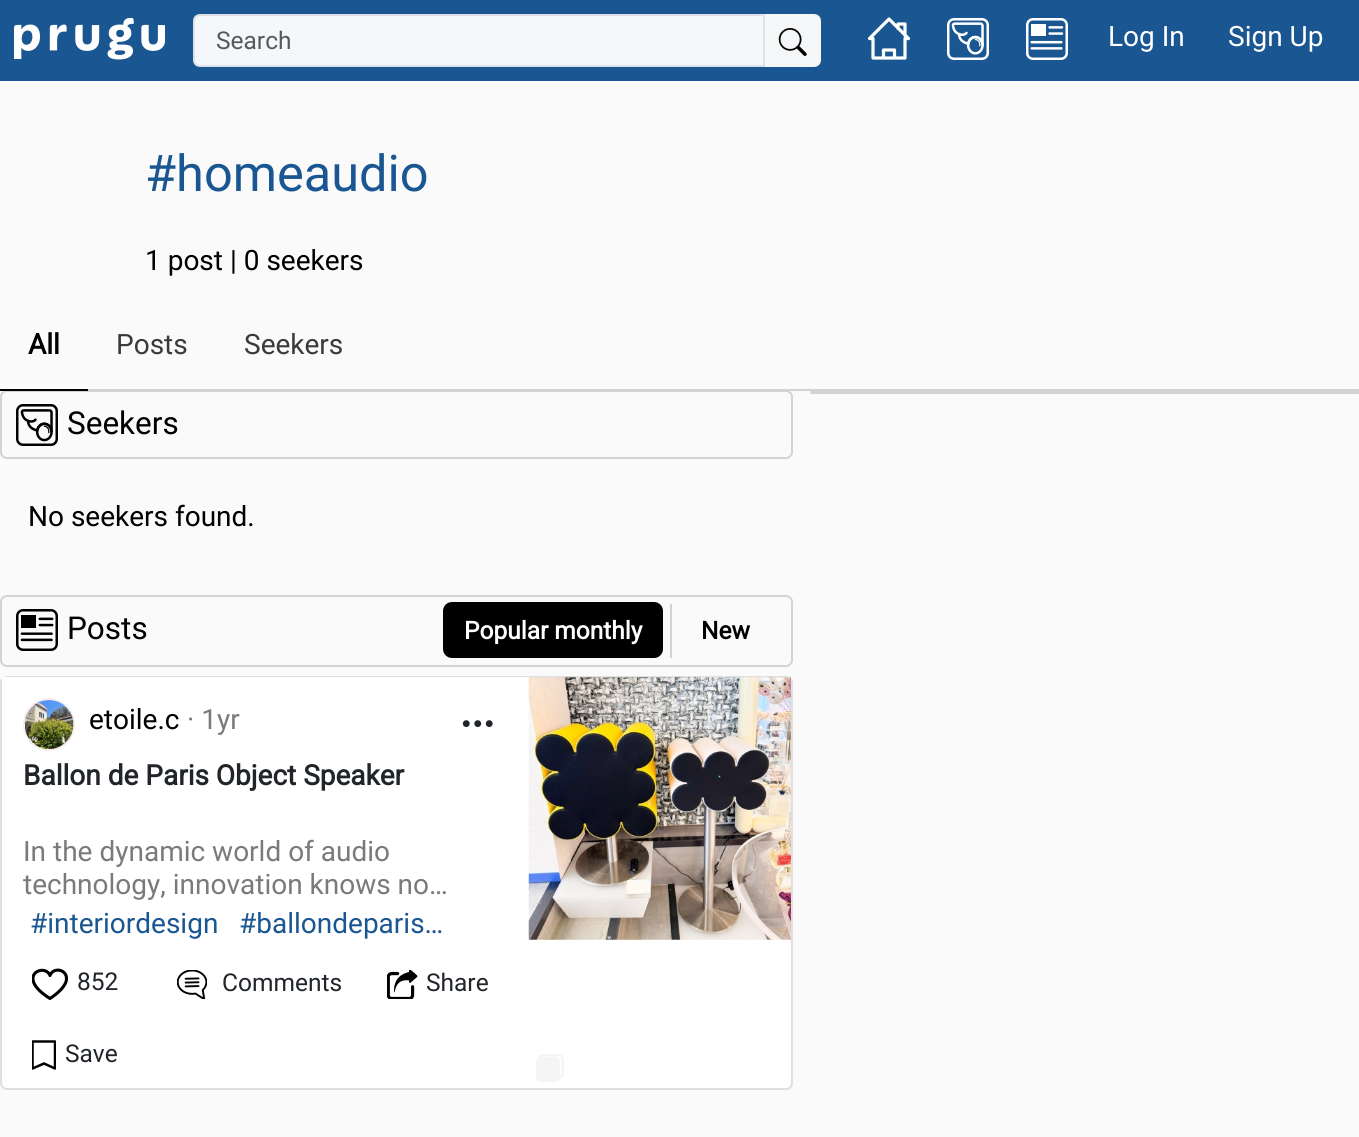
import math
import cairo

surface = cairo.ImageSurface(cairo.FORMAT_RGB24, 1359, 1137)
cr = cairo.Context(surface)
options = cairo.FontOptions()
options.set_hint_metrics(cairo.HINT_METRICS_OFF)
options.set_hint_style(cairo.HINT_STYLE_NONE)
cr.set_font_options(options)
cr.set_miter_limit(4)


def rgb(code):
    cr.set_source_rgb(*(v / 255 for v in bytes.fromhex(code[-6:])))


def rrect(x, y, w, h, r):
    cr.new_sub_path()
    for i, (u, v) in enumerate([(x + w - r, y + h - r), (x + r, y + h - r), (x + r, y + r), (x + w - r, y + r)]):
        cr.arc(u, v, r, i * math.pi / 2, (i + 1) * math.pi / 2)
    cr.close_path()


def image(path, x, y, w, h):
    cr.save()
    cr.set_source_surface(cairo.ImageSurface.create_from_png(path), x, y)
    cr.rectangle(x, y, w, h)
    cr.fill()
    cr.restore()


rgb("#fafafa")
cr.paint()
rgb("#1a5691")
cr.rectangle(0, 0, 1359, 81)
cr.fill()
image("img/1.png", 14, 18, 151, 42)
rgb("#f5f8fa")
cr.new_path()
cr.move_to(200, 15)
cr.line_to(764, 15)
cr.line_to(764, 66)
cr.line_to(200, 66)
cr.curve_to(196.5, 66, 194, 63.5, 194, 60)
cr.line_to(194, 21)
cr.curve_to(194, 17.5, 196.5, 15, 200, 15)
cr.close_path()
cr.fill_preserve()
rgb("#dee2e6")
cr.stroke()
rgb("#f5f6f7")
cr.new_path()
cr.move_to(765, 14)
cr.line_to(814, 14)
cr.curve_to(818, 14, 821, 17, 821, 21)
cr.line_to(821, 60)
cr.curve_to(821, 64, 818, 67, 814, 67)
cr.line_to(765, 67)
cr.close_path()
cr.fill()
image("img/2.png", 778, 28, 29, 28)
cr.new_path()
cr.move_to(883.5, 58)
cr.line_to(883.5, 50)
cr.line_to(894.5, 50)
cr.line_to(894.5, 58)
cr.move_to(905, 35.5)
cr.line_to(905, 24)
cr.line_to(898, 24)
cr.line_to(898, 28.5)
cr.move_to(873, 38.5)
cr.line_to(873, 58)
cr.line_to(905, 58)
cr.line_to(905, 38.5)
cr.line_to(908.5, 38.5)
cr.line_to(889, 19)
cr.line_to(869.5, 38.5)
cr.close_path()
rgb("#ffffff")
cr.set_line_width(3.2)
cr.set_line_cap(cairo.LINE_CAP_ROUND)
cr.set_line_join(cairo.LINE_JOIN_ROUND)
cr.stroke()
image("img/3.png", 947, 18, 42, 42)
image("img/4.png", 1026, 18, 42, 42)
rgb("#d3d3d3")
cr.rectangle(88, 389, 1271, 2)
cr.fill()
rrect(1, 391, 791, 67, 6)
cr.set_line_width(2)
cr.set_line_cap(cairo.LINE_CAP_BUTT)
cr.set_line_join(cairo.LINE_JOIN_MITER)
cr.stroke()
rgb("#000000")
cr.rectangle(0, 389, 88, 2)
cr.fill()
rgb("#d3d3d3")
rrect(810, 390, 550, 4, 2)
cr.fill()
image("img/5.png", 16, 404, 42, 42)
rrect(1, 596, 791, 70, 6)
cr.stroke()
image("img/6.png", 16, 609, 42, 42)
cr.rectangle(670, 604, 2, 54)
cr.fill()
rgb("#000000")
rrect(443, 602, 220, 56, 9)
cr.fill()
rgb("#ffffff")
rrect(1, 677, 791, 412, 6)
cr.fill_preserve()
rgb("#dfdfdf")
cr.stroke()
rgb("#ffffff")
cr.rectangle(2, 677, 527, 5)
cr.fill()
rrect(24, 699, 50, 51, 25)
rgb("#f8edf1")
cr.stroke()
image("img/7.png", 24, 700, 50, 49)
image("img/8.png", 462, 720, 31, 8)
cr.save()
cr.rectangle(32, 966, 36, 37)
cr.clip()
cr.new_path()
cr.move_to(66.5, 978.5)
cr.curve_to(66.5, 969, 53, 967, 50, 975.5)
cr.curve_to(44.5, 962, 14.5, 976.5, 50, 998.5)
cr.curve_to(57.5, 993.5, 66.5, 986, 66.5, 978.5)
cr.close_path()
rgb("#000000")
cr.set_line_width(3.1)
cr.set_line_cap(cairo.LINE_CAP_ROUND)
cr.set_line_join(cairo.LINE_JOIN_ROUND)
cr.stroke()
cr.restore()
image("img/9.png", 177, 970, 30, 29)
image("img/10.png", 387, 970, 31, 29)
cr.save()
cr.rectangle(32, 1040, 24, 31)
cr.clip()
cr.new_path()
cr.move_to(32.5, 1041.5)
cr.line_to(32.5, 1068.5)
cr.line_to(44, 1063.5)
cr.line_to(55, 1068.5)
cr.line_to(55, 1041.5)
cr.close_path()
rgb("#000000")
cr.set_line_width(2.5)
cr.set_line_cap(cairo.LINE_CAP_ROUND)
cr.set_line_join(cairo.LINE_JOIN_ROUND)
cr.stroke()
cr.restore()
image("img/11.png", 528, 677, 263, 263)
rrect(539.25, 1055.25, 23.5, 22.5, 3.75)
rgb("#f5f5f5")
cr.set_line_width(2.5)
cr.stroke()
rrect(536, 1057, 24, 25, 5)
cr.fill()
cr.select_font_face("Roboto")
cr.set_font_size(24.5)
rgb("#565a5d")
cr.move_to(216, 49)
cr.show_text("Search")
cr.set_font_size(28)
rgb("#ffffff")
cr.move_to(1108, 46)
cr.show_text("Log In")
cr.move_to(1228, 46)
cr.show_text("Sign Up")
cr.set_font_size(50.5)
rgb("#1a5691")
cr.move_to(145, 191)
cr.show_text("#homeaudio")
cr.set_font_size(28)
rgb("#000000")
cr.move_to(145, 270)
cr.show_text("1 post | 0 seekers")
cr.select_font_face("Roboto", cairo.FONT_SLANT_NORMAL, cairo.FONT_WEIGHT_BOLD)
cr.move_to(28, 354)
cr.show_text("All")
cr.select_font_face("Roboto")
rgb("#3a3a3a")
cr.move_to(116, 354)
cr.show_text("Posts")
cr.move_to(244, 354)
cr.show_text("Seekers")
cr.set_font_size(31.5)
rgb("#000000")
cr.move_to(67, 434)
cr.show_text("Seekers")
cr.set_font_size(28)
cr.move_to(28, 526)
cr.show_text("No seekers found.")
cr.set_font_size(31.5)
cr.move_to(67, 639)
cr.show_text("Posts")
cr.select_font_face("Roboto", cairo.FONT_SLANT_NORMAL, cairo.FONT_WEIGHT_BOLD)
cr.set_font_size(24.5)
rgb("#ffffff")
cr.move_to(464, 639)
cr.show_text("Popular monthly")
rgb("#000000")
cr.move_to(701, 639)
cr.show_text("New")
cr.select_font_face("Roboto")
cr.set_font_size(28)
cr.move_to(89, 729)
cr.show_text("etoile.c")
rgb("#7a7a7a")
cr.move_to(187, 729)
cr.show_text("· 1yr")
cr.select_font_face("Roboto", cairo.FONT_SLANT_NORMAL, cairo.FONT_WEIGHT_BOLD)
rgb("#212529")
cr.move_to(23, 785)
cr.show_text("Ballon de Paris Object Speaker")
cr.select_font_face("Roboto")
rgb("#7a7a7a")
cr.move_to(23, 861)
cr.show_text("In the dynamic world of audio")
cr.move_to(23, 894)
cr.show_text("technology, innovation knows no…")
rgb("#1a5691")
cr.move_to(30, 933)
cr.show_text("#interiordesign")
cr.move_to(239, 933)
cr.show_text("#ballondeparis…")
cr.set_font_size(24.5)
rgb("#212529")
for x, y, s in [
    (77, 990, "852"),
    (222, 991, "Comments"),
    (426, 991, "Share"),
    (65, 1062, "Save"),
]:
    cr.move_to(x, y)
    cr.show_text(s)
surface.write_to_png("page.png")
